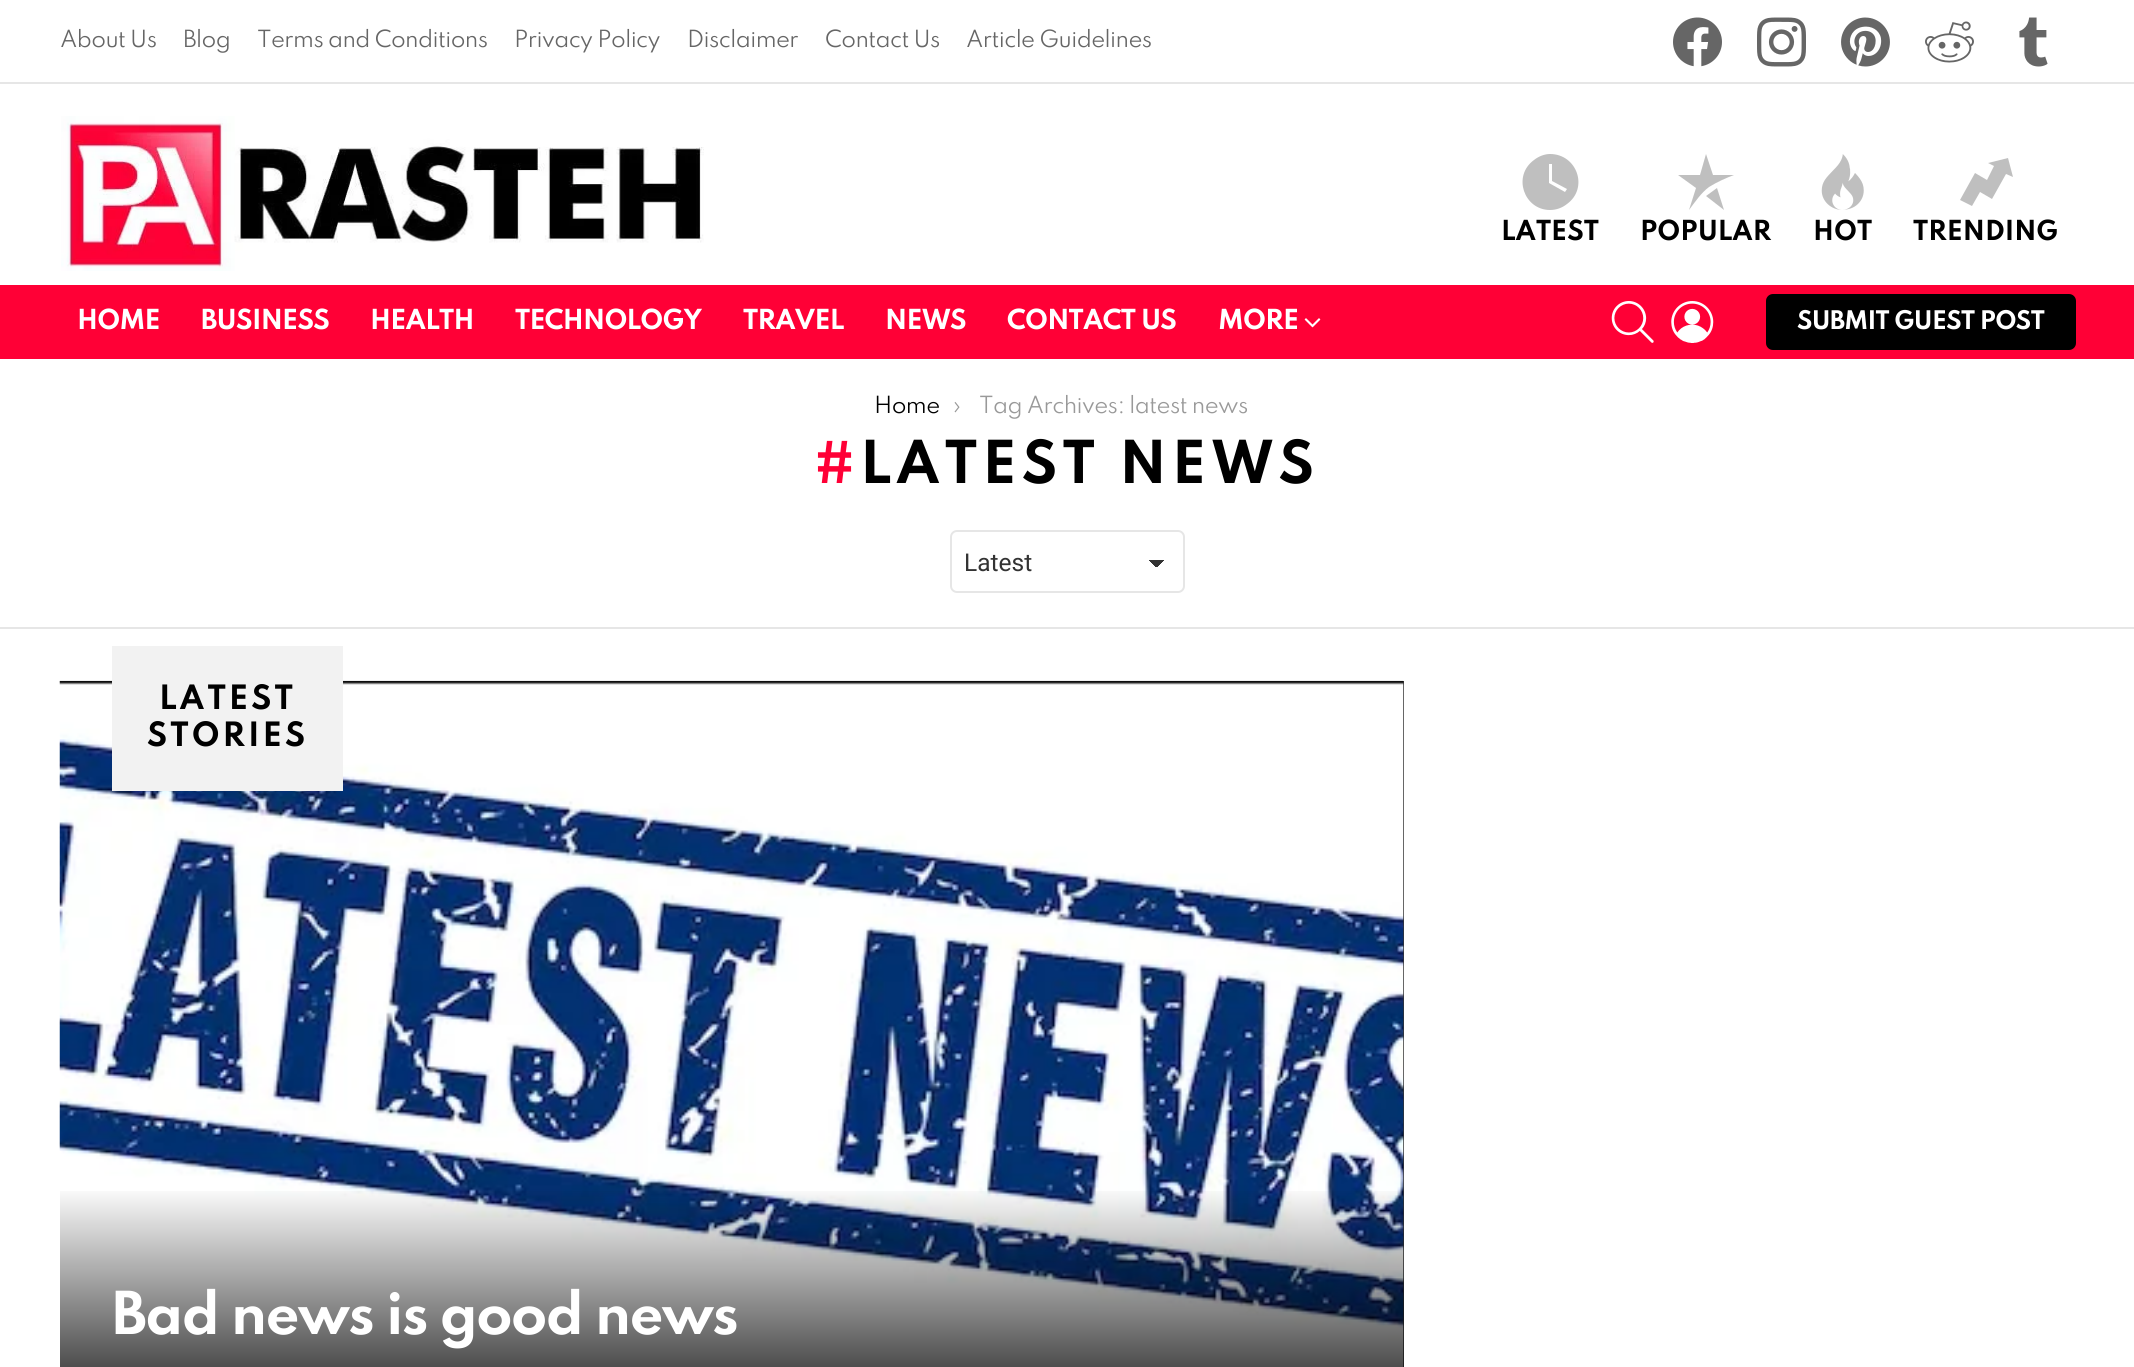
import math
import cairo

surface = cairo.ImageSurface(cairo.FORMAT_RGB24, 2134, 1367)
cr = cairo.Context(surface)
options = cairo.FontOptions()
options.set_hint_metrics(cairo.HINT_METRICS_OFF)
options.set_hint_style(cairo.HINT_STYLE_NONE)
cr.set_font_options(options)
cr.set_miter_limit(4)


def rgb(code):
    cr.set_source_rgb(*(v / 255 for v in bytes.fromhex(code[-6:])))


def tracked(x, y, s, letter, word):
    cr.move_to(x, y)
    for ch in s:
        cr.show_text(ch)
        cr.rel_move_to(letter + word * (ch == ' '), 0)


def rrect(x, y, w, h, r):
    cr.new_sub_path()
    for i, (u, v) in enumerate([(x + w - r, y + h - r), (x + r, y + h - r), (x + r, y + r), (x + w - r, y + r)]):
        cr.arc(u, v, r, i * math.pi / 2, (i + 1) * math.pi / 2)
    cr.close_path()


def image(path, x, y, w, h):
    cr.save()
    cr.set_source_surface(cairo.ImageSurface.create_from_png(path), x, y)
    cr.rectangle(x, y, w, h)
    cr.fill()
    cr.restore()


rgb("#ffffff")
cr.paint()
image("img/1.png", 1673, 17, 49, 50)
image("img/2.png", 1757, 17, 49, 50)
image("img/3.png", 1841, 17, 49, 50)
image("img/4.png", 1925, 21, 49, 42)
image("img/5.png", 2019, 17, 29, 50)
rgb("#e6e6e6")
cr.rectangle(0, 82, 2134, 2)
cr.fill()
image("img/6.png", 61, 116, 643, 155)
rgb("#bfbfbf")
cr.new_path()
cr.move_to(1550, 154)
cr.curve_to(1545, 154, 1539, 156, 1534, 160)
cr.curve_to(1512, 176, 1524, 210, 1550, 210)
cr.curve_to(1556, 210, 1562, 208, 1567, 204)
cr.curve_to(1589, 188, 1577, 154, 1550, 154)
cr.close_path()
cr.move_to(1565, 192)
cr.line_to(1549, 183)
cr.line_to(1549, 164)
cr.line_to(1552, 164)
cr.line_to(1552, 181)
cr.line_to(1567, 189)
cr.close_path()
cr.fill()
cr.new_path()
cr.move_to(1709, 187)
cr.curve_to(1717, 182, 1726, 178, 1734, 175)
cr.line_to(1713, 175)
cr.line_to(1706, 154)
cr.line_to(1700, 175)
cr.line_to(1678, 175)
cr.line_to(1696, 188)
cr.line_to(1689, 210)
cr.curve_to(1695, 202, 1701, 193, 1709, 187)
cr.close_path()
cr.move_to(1706, 196)
cr.line_to(1724, 210)
cr.line_to(1717, 188)
cr.close_path()
cr.fill()
image("img/7.png", 1821, 154, 43, 56)
cr.new_path()
cr.move_to(1987, 180)
cr.line_to(1994, 166)
cr.line_to(1988, 163)
cr.line_to(2008, 158)
cr.line_to(2013, 177)
cr.line_to(2006, 174)
cr.line_to(1992, 199)
cr.line_to(1980, 192)
cr.line_to(1972, 206)
cr.line_to(1960, 200)
cr.line_to(1975, 173)
cr.close_path()
cr.fill()
rgb("#ff0036")
cr.rectangle(0, 285, 2134, 74)
cr.fill()
image("img/8.png", 1304, 318, 17, 10)
image("img/9.png", 1611, 301, 43, 42)
image("img/10.png", 1671, 301, 43, 42)
rgb("#000000")
rrect(1766, 294, 310, 56, 7)
cr.fill()
gradient = cairo.LinearGradient(1157, 560, 1165, 567)
gradient.add_color_stop_rgba(0.5, 0.2, 0.2, 0.2, 1)
gradient.add_color_stop_rgba(0.5, 1, 1, 1, 1)
cr.set_source(gradient)
cr.rectangle(1157, 560, 9, 7)
cr.fill()
gradient = cairo.LinearGradient(1148, 567, 1156, 560)
gradient.add_color_stop_rgba(0.5, 1, 1, 1, 1)
gradient.add_color_stop_rgba(0.5, 0.2, 0.2, 0.2, 1)
cr.set_source(gradient)
cr.rectangle(1148, 560, 9, 7)
cr.fill()
rrect(951, 531, 233, 61, 6)
rgb("#e6e6e6")
cr.stroke()
cr.rectangle(0, 627, 2134, 2)
cr.fill()
rgb("#333333")
cr.rectangle(1403, 681, 1, 686)
cr.fill()
image("img/11.png", 59, 680, 1345, 687)
rgb("#f2f2f2")
cr.rectangle(112, 646, 231, 145)
cr.fill()
gradient = cairo.LinearGradient(732, 1185, 732, 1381)
gradient.add_color_stop_rgba(0, 0, 0, 0, 0)
gradient.add_color_stop_rgba(1, 0, 0, 0, 0.75)
cr.set_source(gradient)
cr.rectangle(60, 1191, 1344, 176)
cr.fill()
cr.select_font_face("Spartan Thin")
cr.set_font_size(21)
rgb("#666666")
for x, y, s in [
    (60, 47, "About Us"),
    (183, 47, "Blog"),
    (257, 47, "Terms and Conditions"),
    (514, 47, "Privacy Policy"),
    (687, 47, "Disclaimer"),
    (825, 47, "Contact Us"),
    (966, 47, "Article Guidelines"),
]:
    tracked(x, y, s, -0.6, 0)
cr.select_font_face("Spartan Thin", cairo.FONT_SLANT_NORMAL, cairo.FONT_WEIGHT_BOLD)
cr.set_font_size(24.5)
rgb("#000000")
for x, y, s in [
    (1501, 240, "LATEST"),
    (1640, 240, "POPULAR"),
    (1813, 240, "HOT"),
    (1913, 240, "TRENDING"),
]:
    cr.move_to(x, y)
    cr.show_text(s)
rgb("#ffffff")
for x, y, s in [
    (77, 329, "HOME"),
    (201, 329, "BUSINESS"),
    (370, 329, "HEALTH"),
    (515, 329, "TECHNOLOGY"),
    (743, 329, "TRAVEL"),
    (885, 329, "NEWS"),
    (1007, 329, "CONTACT US"),
    (1218, 329, "MORE"),
]:
    tracked(x, y, s, -0.75, 0)
cr.set_font_size(22.75)
tracked(1797, 329, "SUBMIT GUEST POST", -0.7, 0)
cr.select_font_face("Spartan Thin")
cr.set_font_size(21)
rgb("#000000")
tracked(874, 413, "Home", -0.6, 0)
rgb("#999999")
tracked(953, 413, "›", -0.6, 0)
tracked(979, 413, "Tag Archives: latest news", -0.6, 0)
cr.select_font_face("Spartan Thin", cairo.FONT_SLANT_NORMAL, cairo.FONT_WEIGHT_BOLD)
cr.set_font_size(52.5)
rgb("#ff0036")
tracked(814, 483, "#", 5, 0)
rgb("#000000")
tracked(860, 483, "LATEST NEWS", 5, 0)
cr.select_font_face("Roboto")
cr.set_font_size(24.5)
rgb("#333333")
cr.move_to(964, 571)
cr.show_text("Latest")
cr.select_font_face("Spartan Thin", cairo.FONT_SLANT_NORMAL, cairo.FONT_WEIGHT_BOLD)
cr.set_font_size(29.75)
rgb("#000000")
tracked(159, 709, "LATEST", 3, 0)
tracked(147, 746, "STORIES", 3, 0)
cr.set_font_size(52.5)
rgb("#ffffff")
tracked(112, 1334, "Bad news is good news", -1.6, 0)
surface.write_to_png("page.png")
